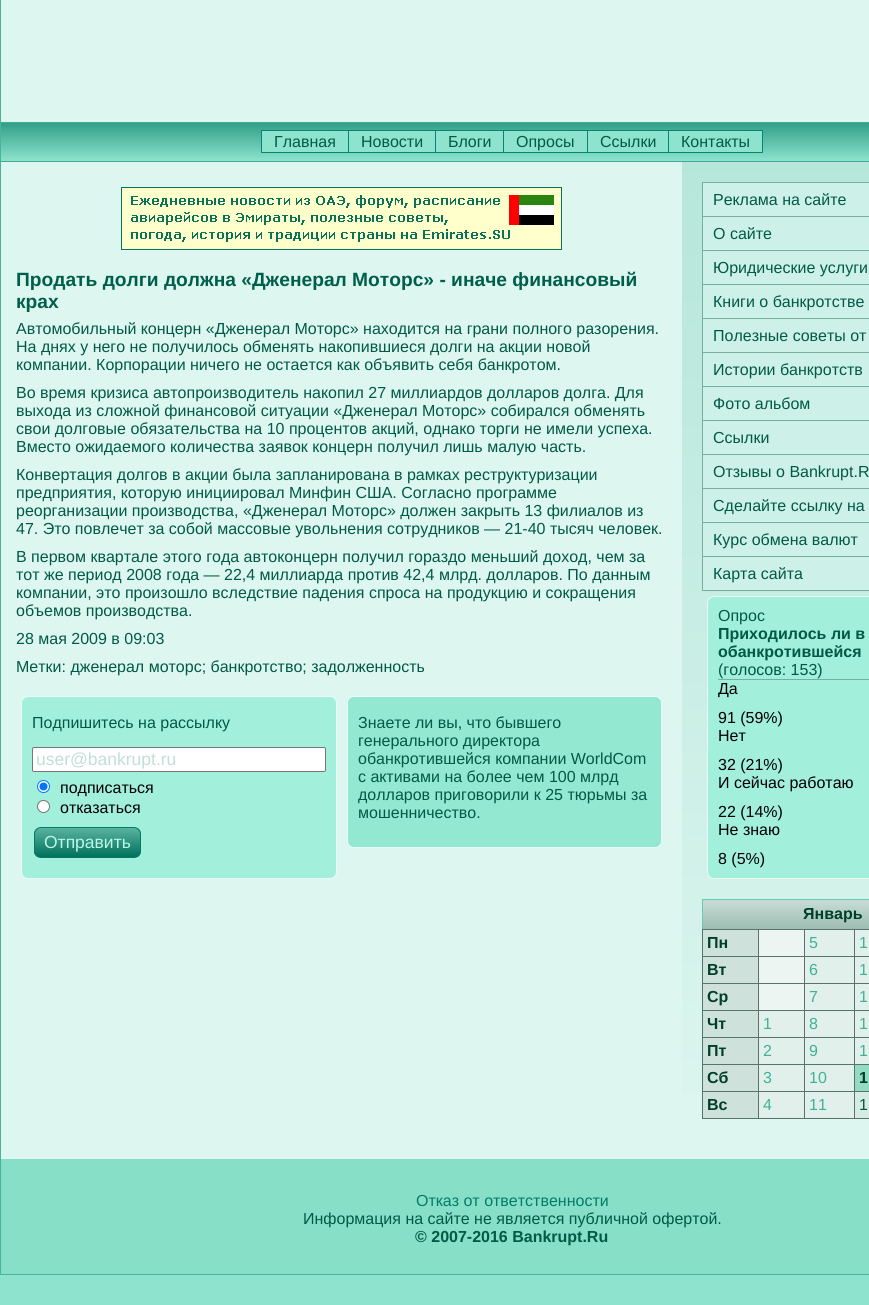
import math
import cairo

surface = cairo.ImageSurface(cairo.FORMAT_RGB24, 869, 1305)
cr = cairo.Context(surface)
options = cairo.FontOptions()
options.set_hint_metrics(cairo.HINT_METRICS_OFF)
options.set_hint_style(cairo.HINT_STYLE_NONE)
cr.set_font_options(options)
cr.set_miter_limit(4)


def rgb(code):
    cr.set_source_rgb(*(v / 255 for v in bytes.fromhex(code[-6:])))


def rrect(x, y, w, h, r):
    cr.new_sub_path()
    for i, (u, v) in enumerate([(x + w - r, y + h - r), (x + r, y + h - r), (x + r, y + r), (x + w - r, y + r)]):
        cr.arc(u, v, r, i * math.pi / 2, (i + 1) * math.pi / 2)
    cr.close_path()


def image(path, x, y, w, h):
    cr.save()
    cr.set_source_surface(cairo.ImageSurface.create_from_png(path), x, y)
    cr.rectangle(x, y, w, h)
    cr.fill()
    cr.restore()


rgb("#8de3cd")
cr.paint()
rgb("#ddf6f0")
cr.rectangle(1, 0, 868, 1159)
cr.fill()
cr.rectangle(0.5, -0.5, 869, 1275)
rgb("#49b39c")
cr.set_line_width(1)
cr.stroke()
gradient = cairo.LinearGradient(512, 123, 512, 161)
gradient.add_color_stop_rgba(0, 0.196, 0.624, 0.537, 1)
gradient.add_color_stop_rgba(1, 0.553, 0.89, 0.804, 1)
cr.set_source(gradient)
cr.rectangle(1, 123, 868, 38)
cr.fill()
for x, y, w, h, color in [
    (1, 122, 868, 1, "#41aa92"),
    (1, 161, 868, 1, "#41aa92"),
    (262, 131, 86, 21, "#8de3cd"),
    (261, 130, 407, 1, "#038771"),
    (261, 152, 407, 1, "#038771"),
    (261, 130, 1, 23, "#038771"),
    (349, 131, 86, 21, "#8de3cd"),
    (348, 130, 1, 23, "#038771"),
    (436, 131, 67, 21, "#8de3cd"),
    (435, 130, 1, 23, "#038771"),
    (504, 131, 83, 21, "#8de3cd"),
    (503, 130, 1, 23, "#038771"),
    (588, 131, 80, 21, "#8de3cd"),
    (587, 130, 1, 23, "#038771"),
]:
    rgb(color)
    cr.rectangle(x, y, w, h)
    cr.fill()
rgb("#8de3cd")
cr.rectangle(668.5, 130.5, 94, 22)
cr.fill_preserve()
rgb("#038771")
cr.stroke()
image("img/1.png", 121, 187, 441, 63)
rgb("#a2efdc")
rrect(21.5, 696.5, 315, 182, 6.5)
cr.fill_preserve()
rgb("#e7fcf7")
cr.stroke()
rgb("#ffffff")
rrect(32.5, 747.5, 293, 24, 1.5)
cr.fill_preserve()
rgb("#767676")
cr.stroke()
rgb("#ffffff")
cr.arc(43.5, 786.5, 6, 0, 2 * math.pi)
cr.fill_preserve()
rgb("#0075ff")
cr.stroke()
cr.arc(43.5, 786.5, 4, 0, 2 * math.pi)
cr.fill()
rgb("#ffffff")
cr.arc(43.5, 806.5, 6, 0, 2 * math.pi)
cr.fill_preserve()
rgb("#767676")
cr.stroke()
cr.save()
rrect(34, 827, 107, 31, 7)
cr.clip()
gradient = cairo.LinearGradient(88, 828, 88, 857)
gradient.add_color_stop_rgba(0, 0.349, 0.702, 0.627, 1)
gradient.add_color_stop_rgba(1, 0, 0.443, 0.361, 1)
cr.set_source(gradient)
cr.rectangle(34, 828, 107, 29)
cr.fill()
cr.restore()
rrect(34.5, 827.5, 106, 30, 6.5)
rgb("#007d67")
cr.stroke()
rgb("#93e8d2")
rrect(347.5, 696.5, 314, 151, 6.5)
cr.fill_preserve()
rgb("#e7fcf7")
cr.stroke()
gradient = cairo.LinearGradient(852, 162, 853, 1159)
gradient.add_color_stop_rgba(0, 0.714, 0.902, 0.855, 1)
gradient.add_color_stop_rgba(1, 0.867, 0.965, 0.941, 1)
cr.set_source(gradient)
cr.rectangle(682, 162, 187, 933)
cr.fill()
for x, y, w, h, color in [
    (702, 182, 167, 1, "#7aada1"),
    (703, 183, 166, 33, "#cdf0e8"),
    (702, 216, 167, 1, "#7aada1"),
    (702, 183, 1, 34, "#7aada1"),
    (703, 217, 166, 33, "#cdf0e8"),
    (702, 250, 167, 1, "#7aada1"),
    (702, 217, 1, 34, "#7aada1"),
    (703, 251, 166, 33, "#cdf0e8"),
    (702, 284, 167, 1, "#7aada1"),
    (702, 251, 1, 34, "#7aada1"),
    (703, 285, 166, 33, "#cdf0e8"),
    (702, 318, 167, 1, "#7aada1"),
    (702, 285, 1, 34, "#7aada1"),
    (703, 319, 166, 33, "#cdf0e8"),
    (702, 352, 167, 1, "#7aada1"),
    (702, 319, 1, 34, "#7aada1"),
    (703, 353, 166, 33, "#cdf0e8"),
    (702, 386, 167, 1, "#7aada1"),
    (702, 353, 1, 34, "#7aada1"),
    (703, 387, 166, 33, "#cdf0e8"),
    (702, 420, 167, 1, "#7aada1"),
    (702, 387, 1, 34, "#7aada1"),
    (703, 421, 166, 33, "#cdf0e8"),
    (702, 454, 167, 1, "#7aada1"),
    (702, 421, 1, 34, "#7aada1"),
    (703, 455, 166, 33, "#cdf0e8"),
    (702, 488, 167, 1, "#7aada1"),
    (702, 455, 1, 34, "#7aada1"),
    (703, 489, 166, 33, "#cdf0e8"),
    (702, 522, 167, 1, "#7aada1"),
    (702, 489, 1, 34, "#7aada1"),
    (703, 523, 166, 33, "#cdf0e8"),
    (702, 556, 167, 1, "#7aada1"),
    (702, 523, 1, 34, "#7aada1"),
    (703, 557, 166, 33, "#cdf0e8"),
    (702, 590, 167, 1, "#7aada1"),
    (702, 557, 1, 34, "#7aada1"),
]:
    rgb(color)
    cr.rectangle(x, y, w, h)
    cr.fill()
rgb("#a2efdc")
rrect(707.5, 596.5, 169, 282, 6.5)
cr.fill_preserve()
rgb("#e7fcf7")
cr.stroke()
for x, y, w, h, color in [
    (718, 679, 151, 1, "#7aada1"),
    (702, 899, 167, 1, "#6ac8b3"),
    (702, 928, 167, 1, "#9fbdb3"),
    (702, 899, 1, 30, "#6ac8b3"),
]:
    rgb(color)
    cr.rectangle(x, y, w, h)
    cr.fill()
gradient = cairo.LinearGradient(853, 900, 853, 928)
gradient.add_color_stop_rgba(0, 0.78, 0.871, 0.839, 1)
gradient.add_color_stop_rgba(1, 0.624, 0.741, 0.702, 1)
cr.set_source(gradient)
cr.rectangle(703, 900, 166, 28)
cr.fill()
for x, y, w, h, color in [
    (703, 930, 55, 26, "#cfe1db"),
    (854, 929, 15, 1, "#58736a"),
    (854, 956, 15, 1, "#58736a"),
    (854, 983, 15, 1, "#58736a"),
    (854, 1010, 15, 1, "#58736a"),
    (854, 1037, 15, 1, "#58736a"),
    (854, 1064, 15, 1, "#58736a"),
    (854, 1091, 15, 1, "#58736a"),
    (854, 1118, 15, 1, "#58736a"),
    (854, 1091, 1, 28, "#58736a"),
    (804, 1091, 51, 1, "#58736a"),
    (854, 1064, 1, 28, "#58736a"),
    (804, 1064, 51, 1, "#58736a"),
    (854, 1037, 1, 28, "#58736a"),
    (804, 1037, 51, 1, "#58736a"),
    (854, 1010, 1, 28, "#58736a"),
    (804, 1010, 51, 1, "#58736a"),
    (854, 983, 1, 28, "#58736a"),
    (804, 983, 51, 1, "#58736a"),
    (854, 956, 1, 28, "#58736a"),
    (804, 956, 51, 1, "#58736a"),
    (854, 929, 1, 28, "#58736a"),
    (804, 929, 51, 1, "#58736a"),
    (804, 1118, 51, 1, "#58736a"),
    (804, 1091, 1, 28, "#58736a"),
    (758, 1091, 47, 1, "#58736a"),
    (804, 1064, 1, 28, "#58736a"),
    (758, 1064, 47, 1, "#58736a"),
    (804, 1037, 1, 28, "#58736a"),
    (758, 1037, 47, 1, "#58736a"),
    (804, 1010, 1, 28, "#58736a"),
    (758, 1010, 47, 1, "#58736a"),
    (804, 983, 1, 28, "#58736a"),
    (758, 983, 47, 1, "#58736a"),
    (804, 956, 1, 28, "#58736a"),
    (758, 956, 47, 1, "#58736a"),
    (804, 929, 1, 28, "#58736a"),
    (758, 929, 47, 1, "#58736a"),
    (758, 1118, 47, 1, "#58736a"),
    (758, 1091, 1, 28, "#58736a"),
    (702, 1091, 57, 1, "#58736a"),
    (758, 1064, 1, 28, "#58736a"),
    (702, 1064, 57, 1, "#58736a"),
    (758, 1037, 1, 28, "#58736a"),
    (702, 1037, 57, 1, "#58736a"),
    (758, 1010, 1, 28, "#58736a"),
    (702, 1010, 57, 1, "#58736a"),
    (758, 983, 1, 28, "#58736a"),
    (702, 983, 57, 1, "#58736a"),
    (758, 956, 1, 28, "#58736a"),
    (702, 956, 57, 1, "#58736a"),
    (758, 929, 1, 28, "#58736a"),
    (702, 929, 57, 1, "#58736a"),
    (702, 1118, 57, 1, "#58736a"),
    (702, 1091, 1, 28, "#58736a"),
    (702, 1064, 1, 28, "#58736a"),
    (702, 1037, 1, 28, "#58736a"),
    (702, 1010, 1, 28, "#58736a"),
    (702, 983, 1, 28, "#58736a"),
    (702, 956, 1, 28, "#58736a"),
    (702, 929, 1, 28, "#58736a"),
    (759, 930, 45, 26, "#ecf5f2"),
    (805, 930, 49, 26, "#e2f0eb"),
    (855, 930, 14, 26, "#e2f0eb"),
    (703, 957, 55, 26, "#cfe1db"),
    (759, 957, 45, 26, "#ecf5f2"),
    (805, 957, 49, 26, "#e2f0eb"),
    (855, 957, 14, 26, "#e2f0eb"),
    (703, 984, 55, 26, "#cfe1db"),
    (759, 984, 45, 26, "#ecf5f2"),
    (805, 984, 49, 26, "#e2f0eb"),
    (855, 984, 14, 26, "#e2f0eb"),
    (703, 1011, 55, 26, "#cfe1db"),
    (759, 1011, 45, 26, "#e2f0eb"),
    (805, 1011, 49, 26, "#e2f0eb"),
    (855, 1011, 14, 26, "#e2f0eb"),
    (703, 1038, 55, 26, "#cfe1db"),
    (759, 1038, 45, 26, "#e2f0eb"),
    (805, 1038, 49, 26, "#e2f0eb"),
    (855, 1038, 14, 26, "#e2f0eb"),
    (703, 1065, 55, 26, "#cfe1db"),
    (759, 1065, 45, 26, "#e2f0eb"),
    (805, 1065, 49, 26, "#e2f0eb"),
    (855, 1065, 14, 26, "#93dbc3"),
    (703, 1092, 55, 26, "#cfe1db"),
    (759, 1092, 45, 26, "#e2f0eb"),
    (805, 1092, 49, 26, "#e2f0eb"),
    (855, 1092, 14, 26, "#d5ebe4"),
    (1, 1159, 868, 115, "#87dfc8"),
]:
    rgb(color)
    cr.rectangle(x, y, w, h)
    cr.fill()
cr.select_font_face("Liberation Sans")
cr.set_font_size(16)
rgb("#005a45")
for x, y, s in [
    (274, 147, "Главная"),
    (361, 147, "Новости"),
    (448, 147, "Блоги"),
    (516, 147, "Опросы"),
    (600, 147, "Ссылки"),
    (681, 147, "Контакты"),
]:
    cr.move_to(x, y)
    cr.show_text(s)
cr.select_font_face("Liberation Sans", cairo.FONT_SLANT_NORMAL, cairo.FONT_WEIGHT_BOLD)
cr.set_font_size(19.2)
rgb("#005f4b")
cr.move_to(16, 286)
cr.show_text("Продать долги должна «Дженерал Моторс» - иначе финансовый")
cr.move_to(16, 308)
cr.show_text("крах")
cr.select_font_face("Liberation Sans")
cr.set_font_size(16)
rgb("#005a45")
for x, y, s in [
    (16, 334, "Автомобильный концерн «Дженерал Моторс» находится на грани полного разорения."),
    (16, 352, "На днях у него не получилось обменять накопившиеся долги на акции новой"),
    (16, 370, "компании. Корпорации ничего не остается как объявить себя банкротом."),
    (16, 398, "Во время кризиса автопроизводитель накопил 27 миллиардов долларов долга. Для"),
    (16, 416, "выхода из сложной финансовой ситуации «Дженерал Моторс» собирался обменять"),
    (16, 434, "свои долговые обязательства на 10 процентов акций, однако торги не имели успеха."),
    (16, 452, "Вместо ожидаемого количества заявок концерн получил лишь малую часть."),
    (16, 480, "Конвертация долгов в акции была запланирована в рамках реструктуризации"),
    (16, 498, "предприятия, которую инициировал Минфин США. Согласно программе"),
    (16, 516, "реорганизации производства, «Дженерал Моторс» должен закрыть 13 филиалов из"),
    (16, 534, "47. Это повлечет за собой массовые увольнения сотрудников — 21-40 тысяч человек."),
    (16, 562, "В первом квартале этого года автоконцерн получил гораздо меньший доход, чем за"),
    (16, 580, "тот же период 2008 года — 22,4 миллиарда против 42,4 млрд. долларов. По данным"),
    (16, 598, "компании, это произошло вследствие падения спроса на продукцию и сокращения"),
    (16, 616, "объемов производства."),
    (16, 644, "28 мая 2009 в 09:03"),
    (16, 672, "Метки: дженерал моторс; банкротство; задолженность"),
    (32, 728, "Подпишитесь на рассылку"),
]:
    cr.move_to(x, y)
    cr.show_text(s)
cr.set_font_size(17.5)
rgb("#c2ded9")
cr.move_to(36, 765)
cr.show_text("user@bankrupt.ru")
cr.set_font_size(16)
rgb("#000000")
cr.move_to(60, 793)
cr.show_text("подписаться")
cr.move_to(60, 813)
cr.show_text("отказаться")
cr.set_font_size(17.5)
rgb("#bcf5e8")
cr.move_to(44, 848)
cr.show_text("Отправить")
cr.set_font_size(16)
rgb("#005a45")
for x, y, s in [
    (358, 728, "Знаете ли вы, что бывшего"),
    (358, 746, "генерального директора"),
    (358, 764, "обанкротившейся компании WorldCom"),
    (358, 782, "с активами на более чем 100 млрд"),
    (358, 800, "долларов приговорили к 25 тюрьмы за"),
    (358, 818, "мошенничество."),
    (713, 205, "Реклама на сайте"),
    (713, 239, "О сайте"),
    (713, 273, "Юридические услуги"),
    (713, 307, "Книги о банкротстве"),
    (713, 341, "Полезные советы от"),
    (713, 375, "Истории банкротств"),
    (713, 409, "Фото альбом"),
    (713, 443, "Ссылки"),
    (713, 477, "Отзывы о Bankrupt.R"),
    (713, 511, "Сделайте ссылку на"),
    (713, 545, "Курс обмена валют"),
    (713, 579, "Карта сайта"),
    (718, 621, "Опрос"),
]:
    cr.move_to(x, y)
    cr.show_text(s)
cr.select_font_face("Liberation Sans", cairo.FONT_SLANT_NORMAL, cairo.FONT_WEIGHT_BOLD)
cr.move_to(718, 639)
cr.show_text("Приходилось ли в")
cr.move_to(718, 657)
cr.show_text("обанкротившейся")
cr.select_font_face("Liberation Sans")
cr.move_to(718, 675)
cr.show_text("(голосов: 153)")
rgb("#000000")
for x, y, s in [
    (718, 694, "Да"),
    (718, 723, "91 (59%)"),
    (718, 741, "Нет"),
    (718, 770, "32 (21%)"),
    (718, 788, "И сейчас работаю"),
    (718, 817, "22 (14%)"),
    (718, 835, "Не знаю"),
    (718, 864, "8 (5%)"),
]:
    cr.move_to(x, y)
    cr.show_text(s)
cr.select_font_face("Liberation Sans", cairo.FONT_SLANT_NORMAL, cairo.FONT_WEIGHT_BOLD)
rgb("#00402a")
cr.move_to(803, 919)
cr.show_text("Январь")
cr.move_to(707, 948)
cr.show_text("Пн")
cr.select_font_face("Liberation Sans")
rgb("#3fb197")
cr.move_to(809, 948)
cr.show_text("5")
cr.move_to(859, 948)
cr.show_text("1")
cr.select_font_face("Liberation Sans", cairo.FONT_SLANT_NORMAL, cairo.FONT_WEIGHT_BOLD)
rgb("#00402a")
cr.move_to(707, 975)
cr.show_text("Вт")
cr.select_font_face("Liberation Sans")
rgb("#3fb197")
cr.move_to(809, 975)
cr.show_text("6")
cr.move_to(859, 975)
cr.show_text("1")
cr.select_font_face("Liberation Sans", cairo.FONT_SLANT_NORMAL, cairo.FONT_WEIGHT_BOLD)
rgb("#00402a")
cr.move_to(707, 1002)
cr.show_text("Ср")
cr.select_font_face("Liberation Sans")
rgb("#3fb197")
cr.move_to(809, 1002)
cr.show_text("7")
cr.move_to(859, 1002)
cr.show_text("1")
cr.select_font_face("Liberation Sans", cairo.FONT_SLANT_NORMAL, cairo.FONT_WEIGHT_BOLD)
rgb("#00402a")
cr.move_to(707, 1029)
cr.show_text("Чт")
cr.select_font_face("Liberation Sans")
rgb("#3fb197")
for x, y, s in [
    (763, 1029, "1"),
    (809, 1029, "8"),
    (859, 1029, "1"),
]:
    cr.move_to(x, y)
    cr.show_text(s)
cr.select_font_face("Liberation Sans", cairo.FONT_SLANT_NORMAL, cairo.FONT_WEIGHT_BOLD)
rgb("#00402a")
cr.move_to(707, 1056)
cr.show_text("Пт")
cr.select_font_face("Liberation Sans")
rgb("#3fb197")
for x, y, s in [
    (763, 1056, "2"),
    (809, 1056, "9"),
    (859, 1056, "1"),
]:
    cr.move_to(x, y)
    cr.show_text(s)
cr.select_font_face("Liberation Sans", cairo.FONT_SLANT_NORMAL, cairo.FONT_WEIGHT_BOLD)
rgb("#00402a")
cr.move_to(707, 1083)
cr.show_text("Сб")
cr.select_font_face("Liberation Sans")
rgb("#3fb197")
cr.move_to(763, 1083)
cr.show_text("3")
cr.move_to(809, 1083)
cr.show_text("10")
cr.select_font_face("Liberation Sans", cairo.FONT_SLANT_NORMAL, cairo.FONT_WEIGHT_BOLD)
rgb("#00402a")
cr.move_to(859, 1083)
cr.show_text("1")
cr.move_to(707, 1110)
cr.show_text("Вс")
cr.select_font_face("Liberation Sans")
rgb("#3fb197")
cr.move_to(763, 1110)
cr.show_text("4")
cr.move_to(809, 1110)
cr.show_text("11")
rgb("#005a45")
cr.move_to(859, 1110)
cr.show_text("1")
rgb("#007d67")
cr.move_to(416, 1206)
cr.show_text("Отказ от ответственности")
rgb("#005a45")
cr.move_to(303, 1224)
cr.show_text("Информация на сайте не является публичной офертой.")
cr.select_font_face("Liberation Sans", cairo.FONT_SLANT_NORMAL, cairo.FONT_WEIGHT_BOLD)
cr.move_to(415, 1242)
cr.show_text("© 2007-2016 Bankrupt.Ru")
surface.write_to_png("page.png")
